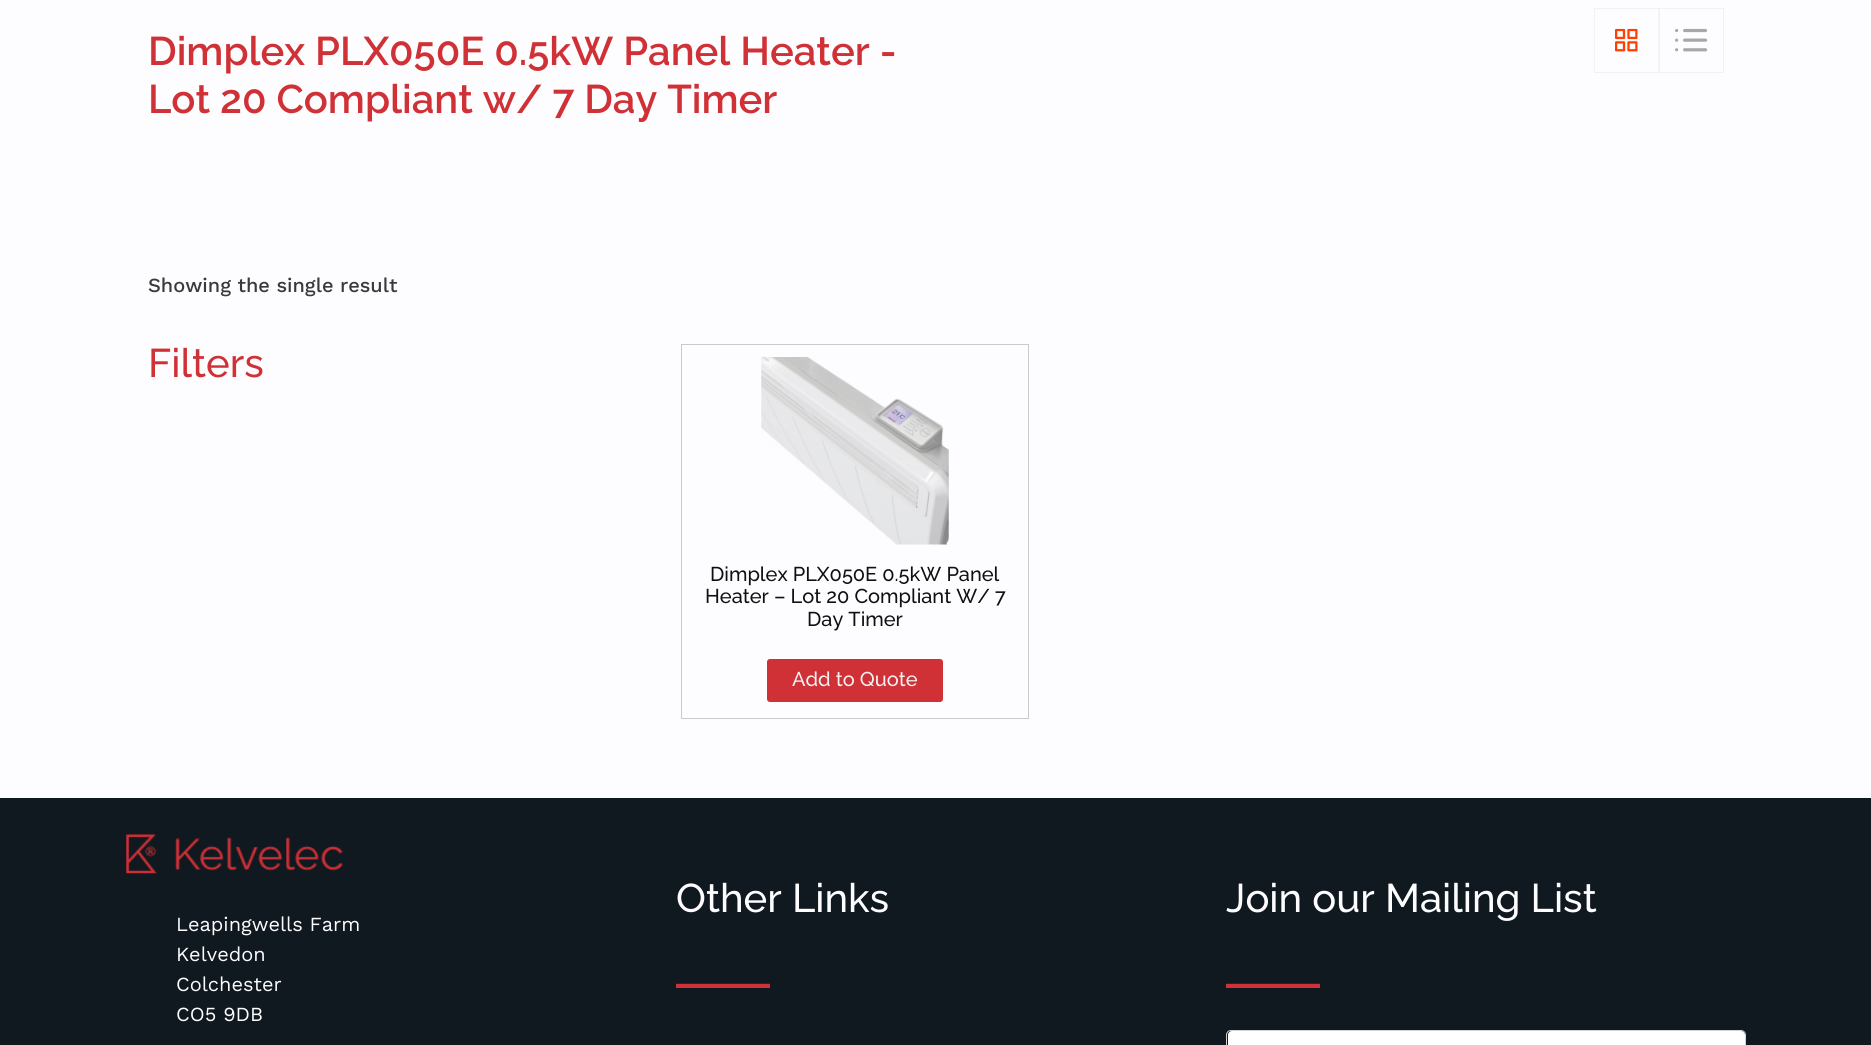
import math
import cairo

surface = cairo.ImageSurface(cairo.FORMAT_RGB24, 1871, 1045)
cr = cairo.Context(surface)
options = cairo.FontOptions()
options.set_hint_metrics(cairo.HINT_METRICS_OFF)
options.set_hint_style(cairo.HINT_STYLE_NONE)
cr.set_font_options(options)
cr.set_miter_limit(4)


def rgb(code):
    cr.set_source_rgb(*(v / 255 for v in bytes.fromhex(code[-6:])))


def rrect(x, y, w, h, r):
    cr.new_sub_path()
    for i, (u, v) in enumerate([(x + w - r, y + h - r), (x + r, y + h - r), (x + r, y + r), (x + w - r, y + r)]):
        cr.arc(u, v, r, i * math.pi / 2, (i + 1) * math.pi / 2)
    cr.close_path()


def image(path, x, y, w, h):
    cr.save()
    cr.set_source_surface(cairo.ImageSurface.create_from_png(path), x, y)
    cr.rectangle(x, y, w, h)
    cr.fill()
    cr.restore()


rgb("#fdfdff")
cr.paint()
cr.rectangle(1594.5, 8.5, 64, 64)
rgb("#f2f2f2")
cr.set_line_width(1)
cr.stroke()
image("img/1.png", 1615, 28, 23, 24)
cr.rectangle(1659.5, 8.5, 64, 64)
cr.stroke()
image("img/2.png", 1675, 28, 33, 24)
cr.rectangle(681.5, 344.5, 347, 374)
rgb("#cacaca")
cr.stroke()
image("img/3.png", 761, 357, 188, 188)
rgb("#d03136")
rrect(765.5, 657.5, 179, 46, 4.5)
cr.fill_preserve()
rgb("#fdfdff")
cr.set_line_width(3)
cr.stroke()
for x, y, w, h, color in [
    (0, 798, 1871, 247, "#101820"),
    (676, 983, 94, 1, "#212529"),
    (676, 984, 94, 4, "#d03136"),
    (1226, 983, 94, 1, "#212529"),
    (1226, 984, 94, 4, "#d03136"),
]:
    rgb(color)
    cr.rectangle(x, y, w, h)
    cr.fill()
rgb("#ffffff")
rrect(1228, 1031, 517, 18, 4)
cr.fill()
rrect(1226.5, 1030.5, 519, 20, 4.5)
rgb("#ced4da")
cr.set_line_width(1)
cr.stroke()
image("img/4.png", 126, 834, 217, 40)
cr.select_font_face("Raleway SemiBold")
cr.set_font_size(40)
rgb("#d03136")
cr.move_to(148, 65)
cr.show_text("Dimplex PLX050E 0.5kW Panel Heater -")
cr.move_to(148, 113)
cr.show_text("Lot 20 Compliant w/ 7 Day Timer")
cr.select_font_face("Work Sans Medium")
cr.set_font_size(20)
rgb("#3a3a3a")
cr.move_to(148, 292)
cr.show_text("Showing the single result")
cr.select_font_face("Raleway Medium")
cr.set_font_size(40)
rgb("#d03136")
cr.move_to(148, 377)
cr.show_text("Filters")
cr.set_font_size(20)
rgb("#101010")
for x, y, s in [
    (710, 581, "Dimplex PLX050E 0.5kW Panel"),
    (705, 603, "Heater – Lot 20 Compliant W/ 7"),
    (807, 626, "Day Timer"),
]:
    cr.move_to(x, y)
    cr.show_text(s)
rgb("#f1f1f1")
cr.move_to(792, 686)
cr.show_text("Add to Quote")
cr.set_font_size(40)
rgb("#fdfdff")
cr.move_to(676, 912)
cr.show_text("Other Links")
cr.move_to(1226, 912)
cr.show_text("Join our Mailing List")
cr.select_font_face("Work Sans")
cr.set_font_size(20)
for x, y, s in [
    (176, 931, "Leapingwells Farm"),
    (176, 961, "Kelvedon"),
    (176, 991, "Colchester"),
    (176, 1021, "CO5 9DB"),
]:
    cr.move_to(x, y)
    cr.show_text(s)
surface.write_to_png("page.png")
